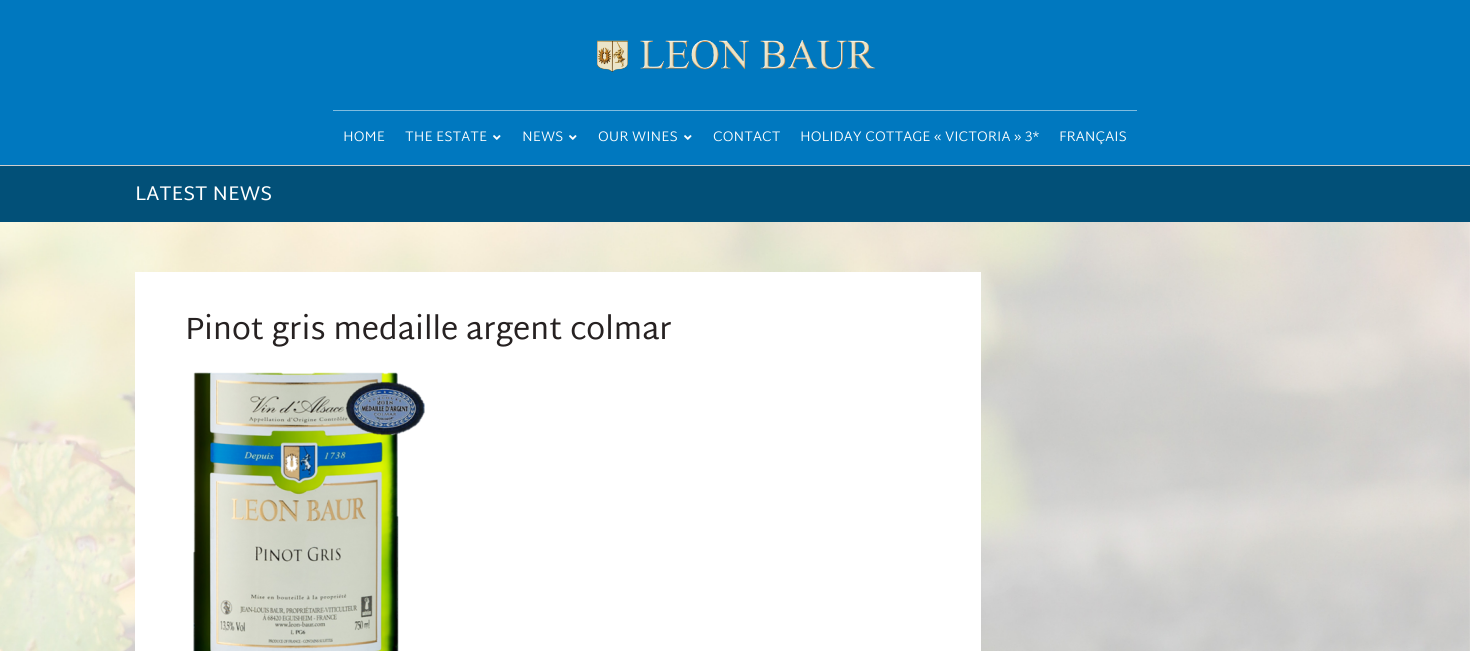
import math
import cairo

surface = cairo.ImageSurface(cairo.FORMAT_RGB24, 1470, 651)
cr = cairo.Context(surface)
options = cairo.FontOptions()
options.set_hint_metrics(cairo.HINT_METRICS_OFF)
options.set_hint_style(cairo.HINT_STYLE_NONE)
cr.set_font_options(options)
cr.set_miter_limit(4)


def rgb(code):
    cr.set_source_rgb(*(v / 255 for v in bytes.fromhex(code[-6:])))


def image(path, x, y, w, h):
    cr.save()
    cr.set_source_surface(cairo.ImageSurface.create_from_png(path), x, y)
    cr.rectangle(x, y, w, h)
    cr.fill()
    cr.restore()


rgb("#ffffff")
cr.paint()
image("img/1.png", 0, 222, 1470, 429)
rgb("#0078bf")
cr.rectangle(0, 0, 1470, 165)
cr.fill()
image("img/2.png", 597, 40, 279, 32)
rgb("#80bcdf")
cr.rectangle(333, 110, 804, 1)
cr.fill()
image("img/3.png", 493, 135, 8, 5)
image("img/3.png", 569, 135, 8, 5)
image("img/3.png", 684, 135, 8, 5)
for x, y, w, h, color in [
    (0, 165, 1470, 1, "#cecece"),
    (0, 166, 1470, 56, "#025078"),
    (135, 272, 846, 379, "#ffffff"),
]:
    rgb(color)
    cr.rectangle(x, y, w, h)
    cr.fill()
image("img/4.png", 193, 372, 232, 279)
cr.select_font_face("Martel Sans Light")
cr.set_font_size(14)
for x, y, s in [
    (343, 141, "HOME"),
    (405, 141, "THE ESTATE"),
    (522, 141, "NEWS"),
    (598, 141, "OUR WINES"),
    (713, 141, "CONTACT"),
    (800, 141, "HOLIDAY COTTAGE « VICTORIA » 3*"),
    (1059, 141, "FRANÇAIS"),
]:
    cr.move_to(x, y)
    cr.show_text(s)
cr.select_font_face("Martel Sans")
cr.set_font_size(20)
cr.move_to(135, 200)
cr.show_text("LATEST NEWS")
cr.set_font_size(31)
rgb("#262121")
cr.move_to(185, 339)
cr.show_text("Pinot gris medaille argent colmar")
surface.write_to_png("page.png")
